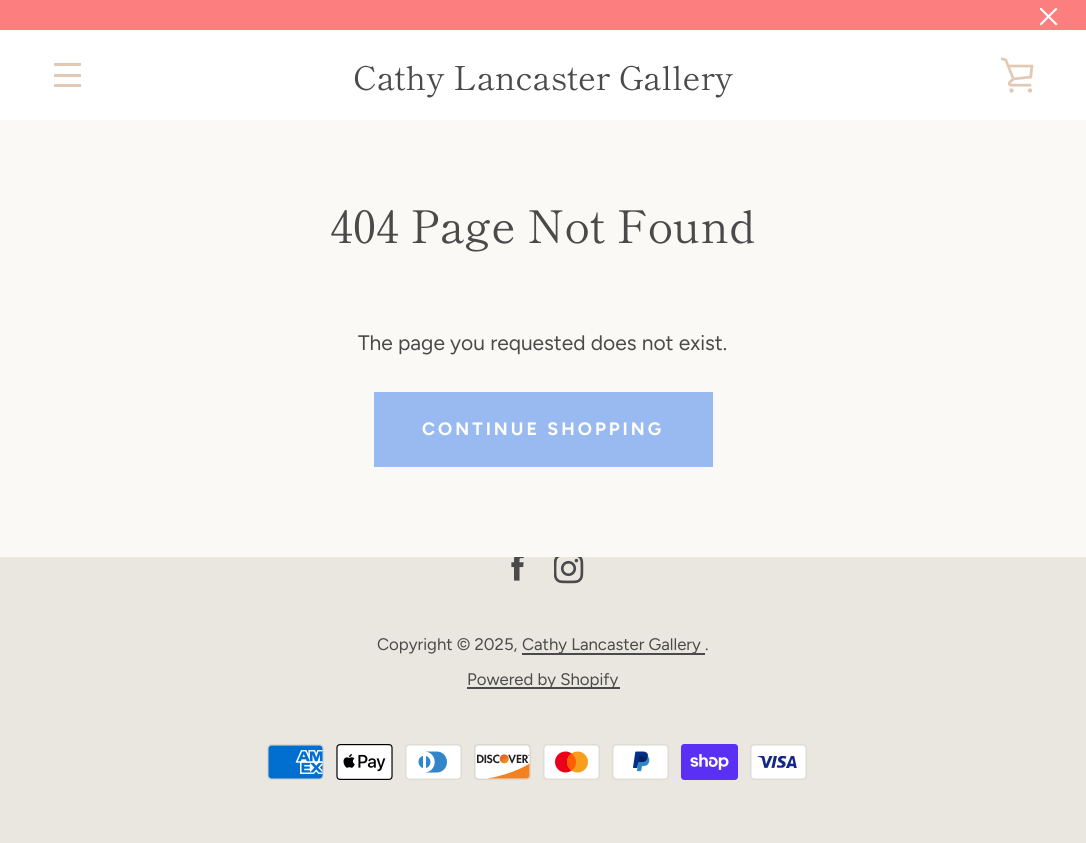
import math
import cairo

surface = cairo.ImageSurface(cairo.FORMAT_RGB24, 1086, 843)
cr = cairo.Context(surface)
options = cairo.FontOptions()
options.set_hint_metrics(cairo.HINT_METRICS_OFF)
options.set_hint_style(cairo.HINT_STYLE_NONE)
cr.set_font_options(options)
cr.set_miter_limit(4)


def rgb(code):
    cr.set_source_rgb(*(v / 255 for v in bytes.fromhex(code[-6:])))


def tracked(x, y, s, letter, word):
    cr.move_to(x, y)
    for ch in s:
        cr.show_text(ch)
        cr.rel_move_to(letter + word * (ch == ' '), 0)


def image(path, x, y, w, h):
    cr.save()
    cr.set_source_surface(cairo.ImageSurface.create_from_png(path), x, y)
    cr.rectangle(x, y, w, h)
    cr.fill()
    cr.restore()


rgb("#eae7e0")
cr.paint()
rgb("#ffffff")
cr.rectangle(0, 30, 1086, 90)
cr.fill()
rgb("#fc7e7e")
cr.rectangle(0, 0, 1086, 30)
cr.fill()
image("img/1.png", 1040, 8, 18, 18)
for x, y, w, h, color in [
    (54, 63, 27, 3, "#e1c9b4"),
    (54, 74, 27, 3, "#e1c9b4"),
    (54, 84, 27, 3, "#e1c9b4"),
]:
    rgb(color)
    cr.rectangle(x, y, w, h)
    cr.fill()
image("img/2.png", 1001, 57, 33, 36)
rgb("#faf9f6")
cr.rectangle(0, 120, 1086, 437)
cr.fill()
rgb("#99baf0")
cr.rectangle(374, 392, 339, 75)
cr.fill()
image("img/3.png", 511, 557, 13, 24)
image("img/4.png", 554, 557, 30, 27)
rgb("#4a4a4a")
cr.rectangle(522, 653, 183, 2)
cr.fill()
cr.rectangle(467, 687, 153, 2)
cr.fill()
image("img/5.png", 267, 744, 57, 36)
image("img/6.png", 336, 744, 57, 36)
image("img/7.png", 405, 744, 57, 36)
image("img/8.png", 474, 744, 57, 36)
image("img/9.png", 543, 744, 57, 36)
image("img/10.png", 612, 744, 57, 36)
image("img/11.png", 681, 744, 57, 36)
image("img/12.png", 750, 744, 57, 36)
cr.select_font_face("Shippori Mincho")
cr.set_font_size(33)
cr.move_to(353, 90)
cr.show_text("Cathy Lancaster Gallery")
cr.set_font_size(45)
cr.move_to(330, 243)
cr.show_text("404 Page Not Found")
cr.select_font_face("Figtree")
cr.set_font_size(21)
cr.move_to(358, 350)
cr.show_text("The page you requested does not exist.")
cr.select_font_face("Figtree", cairo.FONT_SLANT_NORMAL, cairo.FONT_WEIGHT_BOLD)
cr.set_font_size(18)
rgb("#ffffff")
tracked(422, 435, "CONTINUE SHOPPING", 3, 0)
cr.select_font_face("Figtree")
cr.set_font_size(16.75)
rgb("#4a4a4a")
for x, y, s in [
    (377, 650, "Copyright © 2025,"),
    (522, 650, "Cathy Lancaster Gallery ."),
    (467, 685, "Powered by Shopify"),
]:
    cr.move_to(x, y)
    cr.show_text(s)
surface.write_to_png("page.png")
